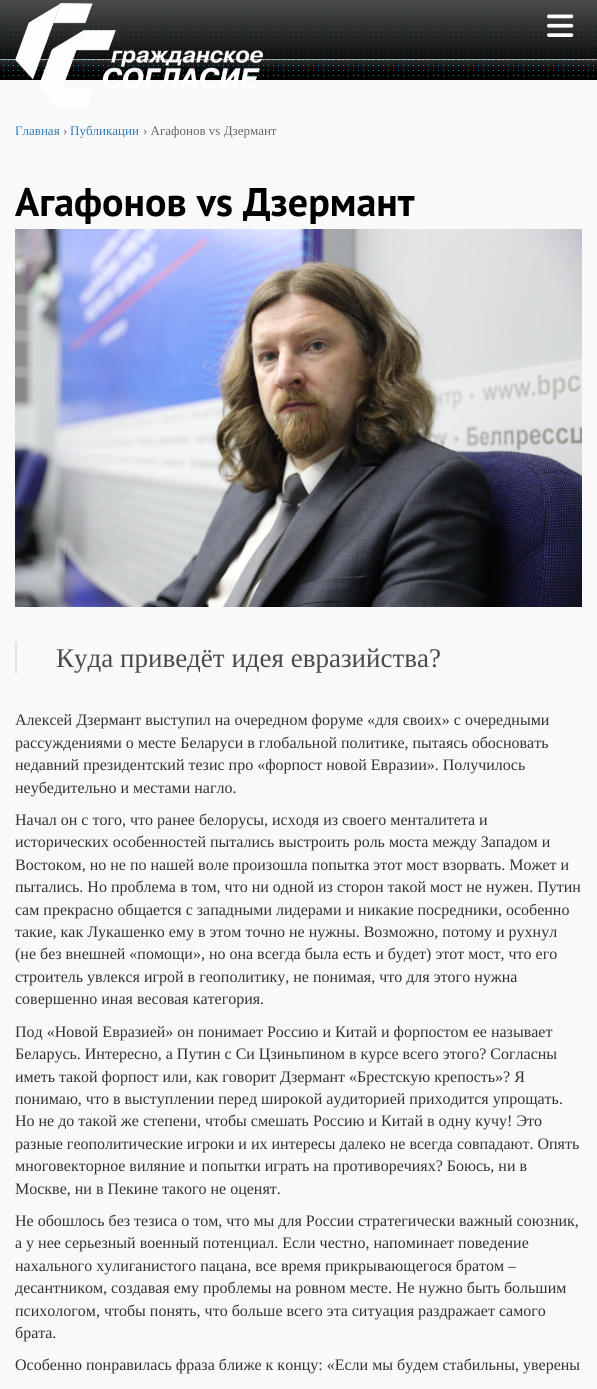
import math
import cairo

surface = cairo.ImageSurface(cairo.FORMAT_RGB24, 597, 1389)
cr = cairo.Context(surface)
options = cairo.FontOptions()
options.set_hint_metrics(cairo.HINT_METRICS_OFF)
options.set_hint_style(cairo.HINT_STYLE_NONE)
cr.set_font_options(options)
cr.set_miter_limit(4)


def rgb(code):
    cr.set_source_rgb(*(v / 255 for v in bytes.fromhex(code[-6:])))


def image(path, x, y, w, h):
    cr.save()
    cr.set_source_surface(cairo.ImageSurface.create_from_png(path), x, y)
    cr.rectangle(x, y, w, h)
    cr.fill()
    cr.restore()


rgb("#f9f9f9")
cr.paint()
rgb("#9e9e9e")
cr.rectangle(0, 59, 597, 1)
cr.fill()
gradient = cairo.LinearGradient(299, 0, 299, 80)
gradient.add_color_stop_rgba(0, 0.294, 0.294, 0.294, 1)
gradient.add_color_stop_rgba(0.9, 0, 0, 0, 1)
cr.set_source(gradient)
cr.rectangle(0, 0, 597, 59)
cr.fill()
image("img/3.png", 3, 4, 591, 51)
gradient = cairo.LinearGradient(299, 0, 299, 80)
gradient.add_color_stop_rgba(0, 0.976, 0.976, 0.976, 1)
gradient.add_color_stop_rgba(0.9, 0, 0, 0, 1)
cr.set_source(gradient)
cr.rectangle(0, 60, 597, 20)
cr.fill()
image("img/4.png", 3, 60, 591, 16)
image("img/1.png", 15, 3, 248, 104)
image("img/2.png", 547, 14, 27, 23)
image("img/5.png", 15, 229, 567, 378)
rgb("#e3e4e5")
cr.rectangle(15, 642, 2, 32)
cr.fill()
cr.select_font_face("Liberation Serif")
cr.set_font_size(13)
rgb("#337ab7")
cr.move_to(15, 135)
cr.show_text("Главная")
rgb("#666666")
cr.move_to(63, 135)
cr.show_text("›")
rgb("#337ab7")
cr.move_to(70, 135)
cr.show_text("Публикации")
rgb("#666666")
cr.move_to(143, 135)
cr.show_text("› Агафонов vs Дзермант")
cr.select_font_face("PT Sans", cairo.FONT_SLANT_NORMAL, cairo.FONT_WEIGHT_BOLD)
cr.set_font_size(40)
rgb("#000000")
cr.move_to(15, 216)
cr.show_text("Агафонов vs Дзермант")
cr.select_font_face("Liberation Serif")
cr.set_font_size(27)
rgb("#494a4c")
cr.move_to(56, 667)
cr.show_text("Куда приведёт идея евразийства?")
cr.set_font_size(16)
rgb("#333333")
for x, y, s in [
    (15, 725, "Алексей Дзермант выступил на очередном форуме «для своих» с очередными"),
    (15, 748, "рассуждениями о месте Беларуси в глобальной политике, пытаясь обосновать"),
    (15, 770, "недавний президентский тезис про «форпост новой Евразии». Получилось"),
    (15, 793, "неубедительно и местами нагло."),
    (15, 825, "Начал он с того, что ранее белорусы, исходя из своего менталитета и"),
    (15, 847, "исторических особенностей пытались выстроить роль моста между Западом и"),
    (15, 870, "Востоком, но не по нашей воле произошла попытка этот мост взорвать. Может и"),
    (15, 892, "пытались. Но проблема в том, что ни одной из сторон такой мост не нужен. Путин"),
    (15, 915, "сам прекрасно общается с западными лидерами и никакие посредники, особенно"),
    (15, 937, "такие, как Лукашенко ему в этом точно не нужны. Возможно, потому и рухнул"),
    (15, 959, "(не без внешней «помощи», но она всегда была есть и будет) этот мост, что его"),
    (15, 982, "строитель увлекся игрой в геополитику, не понимая, что для этого нужна"),
    (15, 1004, "совершенно иная весовая категория."),
    (15, 1037, "Под «Новой Евразией» он понимает Россию и Китай и форпостом ее называет"),
    (15, 1059, "Беларусь. Интересно, а Путин с Си Цзиньпином в курсе всего этого? Согласны"),
    (15, 1082, "иметь такой форпост или, как говорит Дзермант «Брестскую крепость»? Я"),
    (15, 1104, "понимаю, что в выступлении перед широкой аудиторией приходится упрощать."),
    (15, 1126, "Но не до такой же степени, чтобы смешать Россию и Китай в одну кучу! Это"),
    (15, 1149, "разные геополитические игроки и их интересы далеко не всегда совпадают. Опять"),
    (15, 1171, "многовекторное виляние и попытки играть на противоречиях? Боюсь, ни в"),
    (15, 1194, "Москве, ни в Пекине такого не оценят."),
    (15, 1226, "Не обошлось без тезиса о том, что мы для России стратегически важный союзник,"),
    (15, 1248, "а у нее серьезный военный потенциал. Если честно, напоминает поведение"),
    (15, 1271, "нахального хулиганистого пацана, все время прикрывающегося братом –"),
    (15, 1293, "десантником, создавая ему проблемы на ровном месте. Не нужно быть большим"),
    (15, 1316, "психологом, чтобы понять, что больше всего эта ситуация раздражает самого"),
    (15, 1338, "брата."),
    (15, 1370, "Особенно понравилась фраза ближе к концу: «Если мы будем стабильны, уверены"),
]:
    cr.move_to(x, y)
    cr.show_text(s)
surface.write_to_png("page.png")
